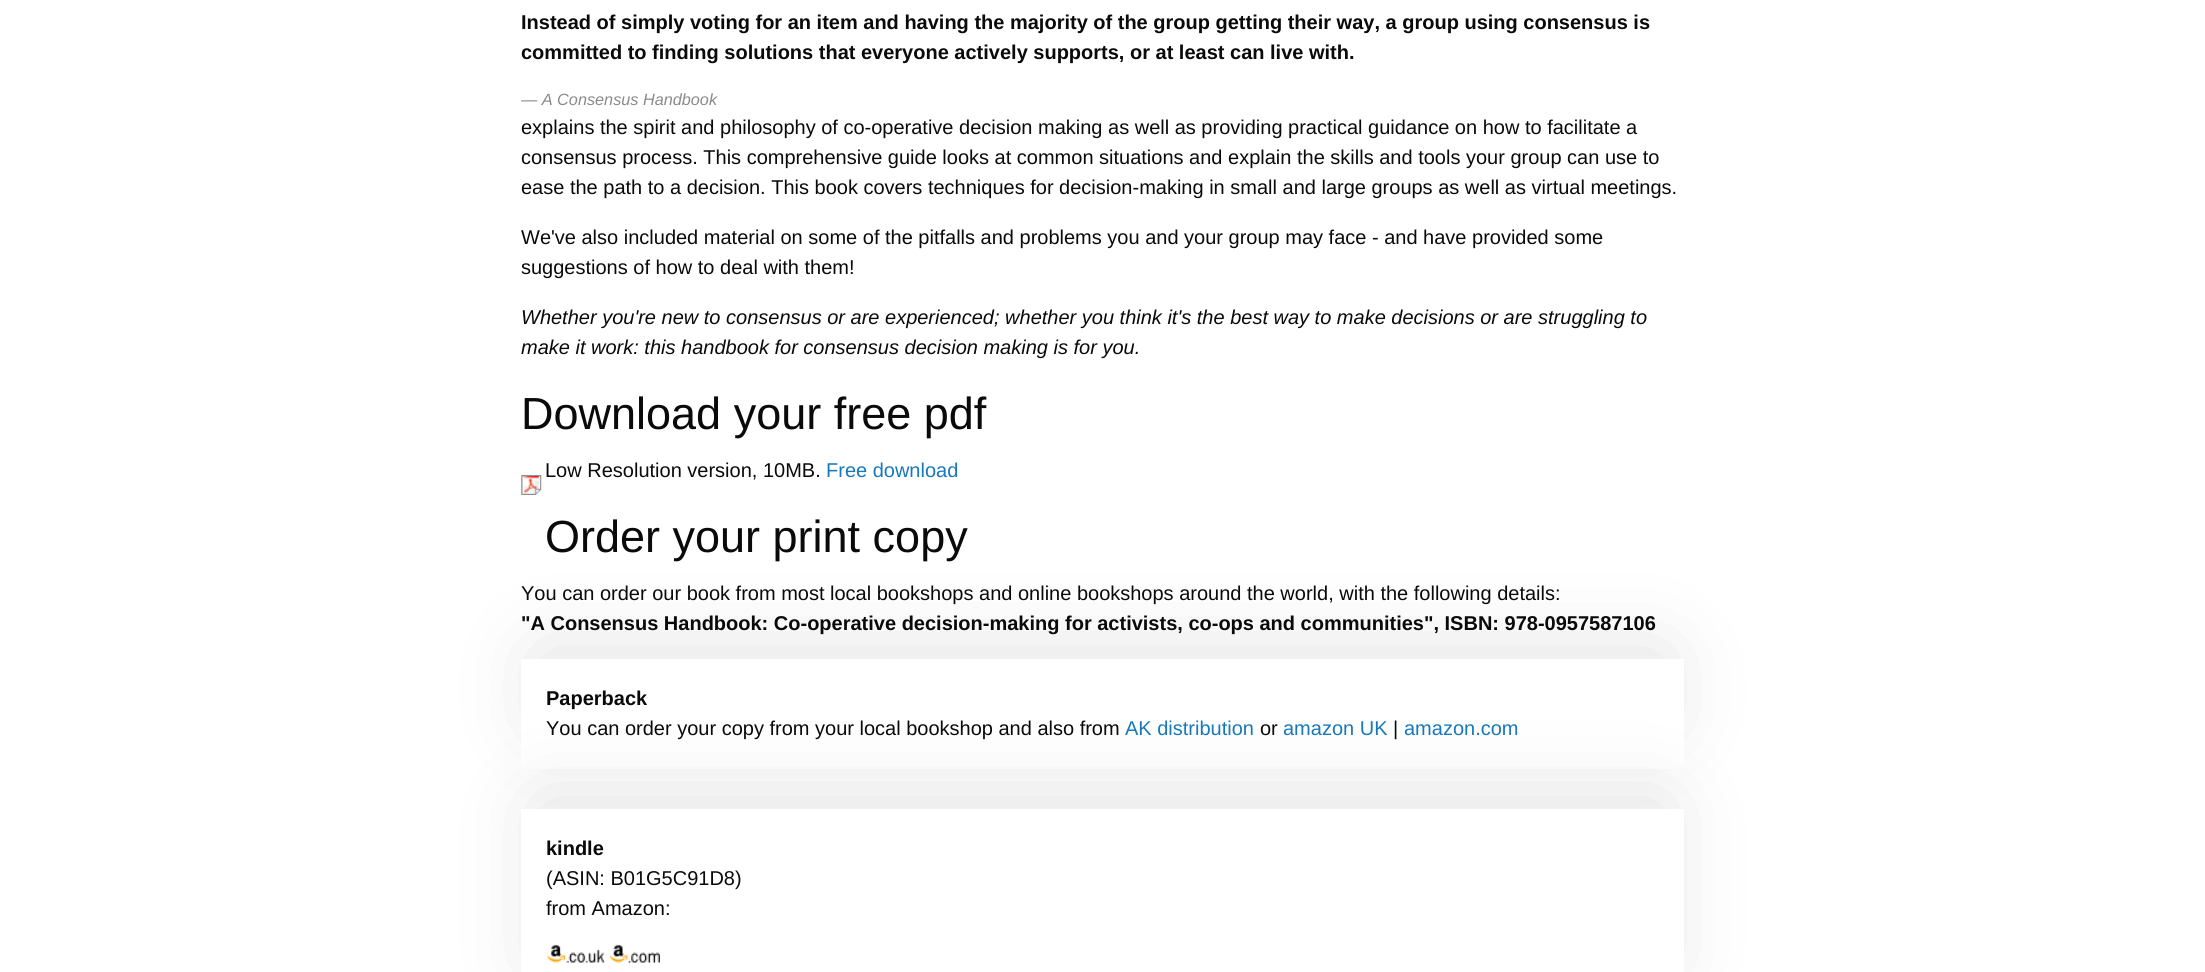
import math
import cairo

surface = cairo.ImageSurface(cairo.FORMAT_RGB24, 2205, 972)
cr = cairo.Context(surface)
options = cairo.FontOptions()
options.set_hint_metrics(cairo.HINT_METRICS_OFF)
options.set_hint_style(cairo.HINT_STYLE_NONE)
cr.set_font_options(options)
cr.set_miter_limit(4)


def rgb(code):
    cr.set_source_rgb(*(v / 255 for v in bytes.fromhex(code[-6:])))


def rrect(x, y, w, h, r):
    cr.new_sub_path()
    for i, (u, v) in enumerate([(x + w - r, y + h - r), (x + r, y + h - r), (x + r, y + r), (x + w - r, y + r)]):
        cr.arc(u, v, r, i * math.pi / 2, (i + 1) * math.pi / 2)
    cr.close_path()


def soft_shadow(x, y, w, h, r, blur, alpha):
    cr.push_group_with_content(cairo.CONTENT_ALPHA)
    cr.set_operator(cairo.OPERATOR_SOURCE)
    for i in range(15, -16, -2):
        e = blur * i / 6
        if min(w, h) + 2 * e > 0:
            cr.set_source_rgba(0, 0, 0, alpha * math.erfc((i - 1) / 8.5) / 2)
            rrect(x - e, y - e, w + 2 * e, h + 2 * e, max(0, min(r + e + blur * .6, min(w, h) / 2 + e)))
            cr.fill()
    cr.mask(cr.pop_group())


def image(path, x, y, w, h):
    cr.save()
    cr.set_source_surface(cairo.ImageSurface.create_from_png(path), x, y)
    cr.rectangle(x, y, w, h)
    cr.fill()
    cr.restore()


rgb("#ffffff")
cr.paint()
image("img/1.png", 521, 475, 21, 20)
cr.save()
cr.set_fill_rule(cairo.FILL_RULE_EVEN_ODD)
cr.new_path()
cr.move_to(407, 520)
cr.line_to(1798, 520)
cr.line_to(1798, 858)
cr.line_to(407, 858)
cr.close_path()
cr.move_to(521, 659)
cr.line_to(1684, 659)
cr.line_to(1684, 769)
cr.line_to(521, 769)
cr.close_path()
cr.clip()
rgb("#000000")
soft_shadow(540, 653, 1125, 72, 0, 44, 0.12)
cr.restore()
cr.save()
cr.set_fill_rule(cairo.FILL_RULE_EVEN_ODD)
cr.new_path()
cr.move_to(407, 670)
cr.line_to(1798, 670)
cr.line_to(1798, 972)
cr.line_to(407, 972)
cr.close_path()
cr.move_to(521, 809)
cr.line_to(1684, 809)
cr.line_to(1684, 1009)
cr.line_to(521, 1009)
cr.close_path()
cr.clip()
rgb("#000000")
soft_shadow(540, 803, 1125, 162, 0, 44, 0.12)
cr.restore()
image("img/2.png", 547, 944, 58, 19)
image("img/3.png", 609, 944, 51, 19)
cr.select_font_face("Liberation Sans", cairo.FONT_SLANT_NORMAL, cairo.FONT_WEIGHT_BOLD)
cr.set_font_size(20)
rgb("#0a0a0a")
cr.move_to(521, 29)
cr.show_text("Instead of simply voting for an item and having the majority of the group getting their way, a group using consensus is")
cr.move_to(521, 59)
cr.show_text("committed to finding solutions that everyone actively supports, or at least can live with.")
cr.select_font_face("Liberation Sans", cairo.FONT_SLANT_ITALIC)
cr.set_font_size(16.25)
rgb("#8a8a8a")
cr.move_to(521, 105)
cr.show_text("— A Consensus Handbook")
cr.select_font_face("Liberation Sans")
cr.set_font_size(20)
rgb("#0a0a0a")
for x, y, s in [
    (521, 134, "explains the spirit and philosophy of co-operative decision making as well as providing practical guidance on how to facilitate a"),
    (521, 164, "consensus process. This comprehensive guide looks at common situations and explain the skills and tools your group can use to"),
    (521, 194, "ease the path to a decision. This book covers techniques for decision-making in small and large groups as well as virtual meetings."),
    (521, 244, "We've also included material on some of the pitfalls and problems you and your group may face - and have provided some"),
    (521, 274, "suggestions of how to deal with them!"),
]:
    cr.move_to(x, y)
    cr.show_text(s)
cr.select_font_face("Liberation Sans", cairo.FONT_SLANT_ITALIC)
cr.move_to(521, 324)
cr.show_text("Whether you're new to consensus or are experienced; whether you think it's the best way to make decisions or are struggling to")
cr.move_to(521, 354)
cr.show_text("make it work: this handbook for consensus decision making is for you.")
cr.select_font_face("Liberation Sans")
cr.set_font_size(45)
cr.move_to(521, 429)
cr.show_text("Download your free pdf")
cr.set_font_size(20)
cr.move_to(545, 477)
cr.show_text("Low Resolution version, 10MB.")
rgb("#1779ba")
cr.move_to(826, 477)
cr.show_text("Free download")
cr.set_font_size(45)
rgb("#0a0a0a")
cr.move_to(545, 552)
cr.show_text("Order your print copy")
cr.set_font_size(20)
cr.move_to(521, 600)
cr.show_text("You can order our book from most local bookshops and online bookshops around the world, with the following details:")
cr.select_font_face("Liberation Sans", cairo.FONT_SLANT_NORMAL, cairo.FONT_WEIGHT_BOLD)
cr.move_to(521, 630)
cr.show_text("\"A Consensus Handbook: Co-operative decision-making for activists, co-ops and communities\", ISBN: 978-0957587106")
cr.move_to(546, 705)
cr.show_text("Paperback")
cr.select_font_face("Liberation Sans")
cr.move_to(546, 735)
cr.show_text("You can order your copy from your local bookshop and also from")
rgb("#1779ba")
cr.move_to(1125, 735)
cr.show_text("AK distribution")
rgb("#0a0a0a")
cr.move_to(1260, 735)
cr.show_text("or")
rgb("#1779ba")
cr.move_to(1283, 735)
cr.show_text("amazon UK")
rgb("#0a0a0a")
cr.move_to(1393, 735)
cr.show_text("|")
rgb("#1779ba")
cr.move_to(1404, 735)
cr.show_text("amazon.com")
cr.select_font_face("Liberation Sans", cairo.FONT_SLANT_NORMAL, cairo.FONT_WEIGHT_BOLD)
rgb("#0a0a0a")
cr.move_to(546, 855)
cr.show_text("kindle")
cr.select_font_face("Liberation Sans")
cr.move_to(546, 885)
cr.show_text("(ASIN: B01G5C91D8)")
cr.move_to(546, 915)
cr.show_text("from Amazon:")
surface.write_to_png("page.png")
